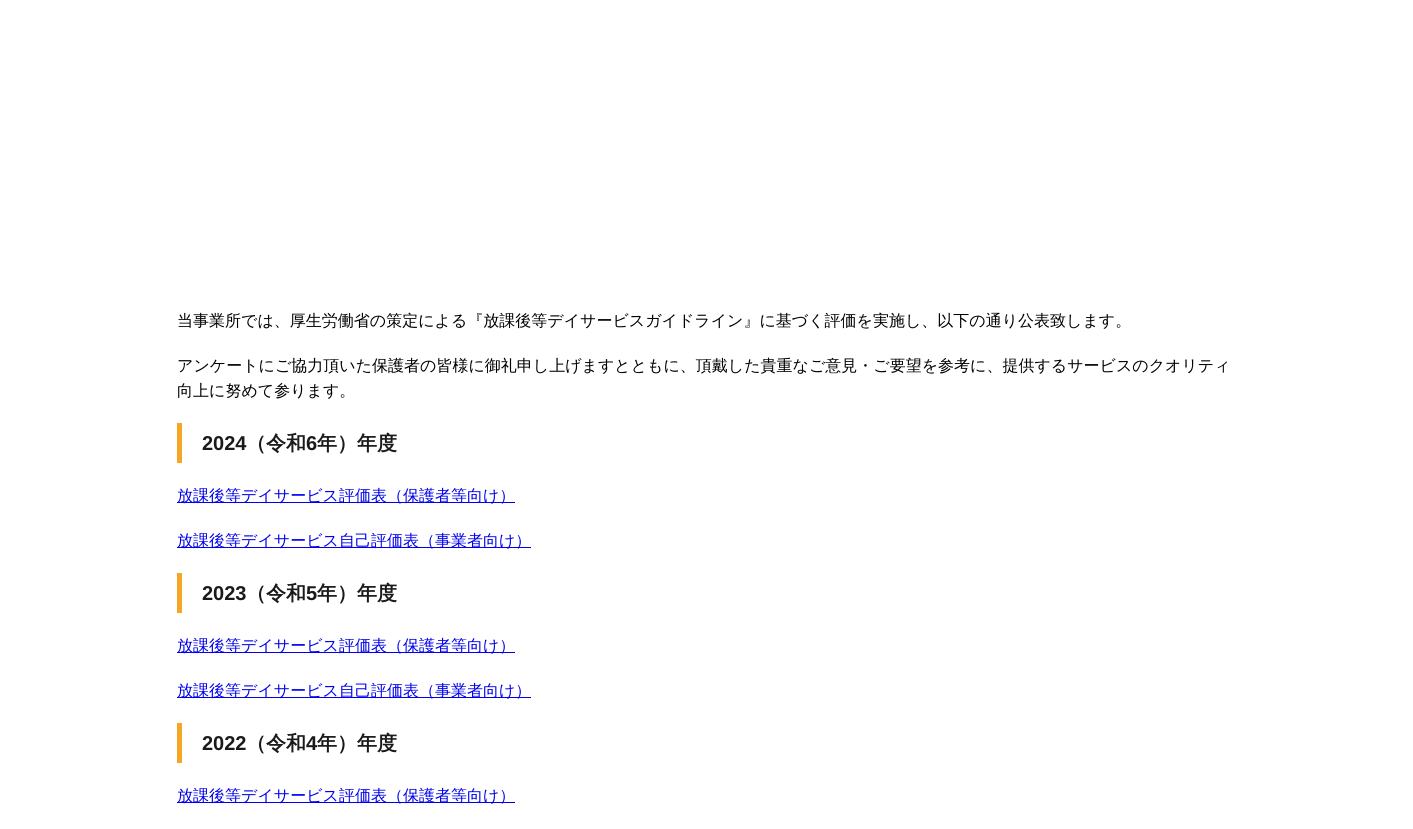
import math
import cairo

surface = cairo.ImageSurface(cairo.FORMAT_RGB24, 1413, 829)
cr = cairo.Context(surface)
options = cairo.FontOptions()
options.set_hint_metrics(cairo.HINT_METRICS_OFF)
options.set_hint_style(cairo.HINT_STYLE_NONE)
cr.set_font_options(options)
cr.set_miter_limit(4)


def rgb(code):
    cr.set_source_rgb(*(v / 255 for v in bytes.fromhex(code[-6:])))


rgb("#ffffff")
cr.paint()
for x, y, w, h, color in [
    (177, 423, 5, 40, "#f5a623"),
    (177, 502, 338, 1, "#0000ee"),
    (177, 547, 354, 1, "#0000ee"),
    (177, 573, 5, 40, "#f5a623"),
    (177, 652, 338, 1, "#0000ee"),
    (177, 697, 354, 1, "#0000ee"),
    (177, 723, 5, 40, "#f5a623"),
    (177, 802, 338, 1, "#0000ee"),
]:
    rgb(color)
    cr.rectangle(x, y, w, h)
    cr.fill()
cr.select_font_face("WenQuanYi Zen Hei Medium")
cr.set_font_size(16)
rgb("#000000")
for x, y, s in [
    (177, 326, "当事業所では、厚生労働省の策定による『放課後等デイサービスガイドライン』に基づく評価を実施し、以下の通り公表致します。"),
    (177, 371, "アンケートにご協力頂いた保護者の皆様に御礼申し上げますとともに、頂戴した貴重なご意見・ご要望を参考に、提供するサービスのクオリティ"),
    (177, 396, "向上に努めて参ります。"),
]:
    cr.move_to(x, y)
    cr.show_text(s)
cr.select_font_face("Liberation Sans", cairo.FONT_SLANT_NORMAL, cairo.FONT_WEIGHT_BOLD)
cr.set_font_size(20)
rgb("#1a1a1a")
cr.move_to(202, 450)
cr.show_text("2024")
cr.select_font_face("WenQuanYi Zen Hei", cairo.FONT_SLANT_NORMAL, cairo.FONT_WEIGHT_BOLD)
cr.move_to(246, 450)
cr.show_text("（令和")
cr.select_font_face("Liberation Sans", cairo.FONT_SLANT_NORMAL, cairo.FONT_WEIGHT_BOLD)
cr.move_to(306, 450)
cr.show_text("6")
cr.select_font_face("WenQuanYi Zen Hei", cairo.FONT_SLANT_NORMAL, cairo.FONT_WEIGHT_BOLD)
cr.move_to(317, 450)
cr.show_text("年）年度")
cr.select_font_face("WenQuanYi Zen Hei Medium")
cr.set_font_size(16)
rgb("#0000ee")
cr.move_to(177, 501)
cr.show_text("放課後等デイサービス評価表（保護者等向け）")
cr.move_to(177, 546)
cr.show_text("放課後等デイサービス自己評価表（事業者向け）")
cr.select_font_face("Liberation Sans", cairo.FONT_SLANT_NORMAL, cairo.FONT_WEIGHT_BOLD)
cr.set_font_size(20)
rgb("#1a1a1a")
cr.move_to(202, 600)
cr.show_text("2023")
cr.select_font_face("WenQuanYi Zen Hei", cairo.FONT_SLANT_NORMAL, cairo.FONT_WEIGHT_BOLD)
cr.move_to(246, 600)
cr.show_text("（令和")
cr.select_font_face("Liberation Sans", cairo.FONT_SLANT_NORMAL, cairo.FONT_WEIGHT_BOLD)
cr.move_to(306, 600)
cr.show_text("5")
cr.select_font_face("WenQuanYi Zen Hei", cairo.FONT_SLANT_NORMAL, cairo.FONT_WEIGHT_BOLD)
cr.move_to(317, 600)
cr.show_text("年）年度")
cr.select_font_face("WenQuanYi Zen Hei Medium")
cr.set_font_size(16)
rgb("#0000ee")
cr.move_to(177, 651)
cr.show_text("放課後等デイサービス評価表（保護者等向け）")
cr.move_to(177, 696)
cr.show_text("放課後等デイサービス自己評価表（事業者向け）")
cr.select_font_face("Liberation Sans", cairo.FONT_SLANT_NORMAL, cairo.FONT_WEIGHT_BOLD)
cr.set_font_size(20)
rgb("#1a1a1a")
cr.move_to(202, 750)
cr.show_text("2022")
cr.select_font_face("WenQuanYi Zen Hei", cairo.FONT_SLANT_NORMAL, cairo.FONT_WEIGHT_BOLD)
cr.move_to(246, 750)
cr.show_text("（令和")
cr.select_font_face("Liberation Sans", cairo.FONT_SLANT_NORMAL, cairo.FONT_WEIGHT_BOLD)
cr.move_to(306, 750)
cr.show_text("4")
cr.select_font_face("WenQuanYi Zen Hei", cairo.FONT_SLANT_NORMAL, cairo.FONT_WEIGHT_BOLD)
cr.move_to(317, 750)
cr.show_text("年）年度")
cr.select_font_face("WenQuanYi Zen Hei Medium")
cr.set_font_size(16)
rgb("#0000ee")
cr.move_to(177, 801)
cr.show_text("放課後等デイサービス評価表（保護者等向け）")
surface.write_to_png("page.png")
